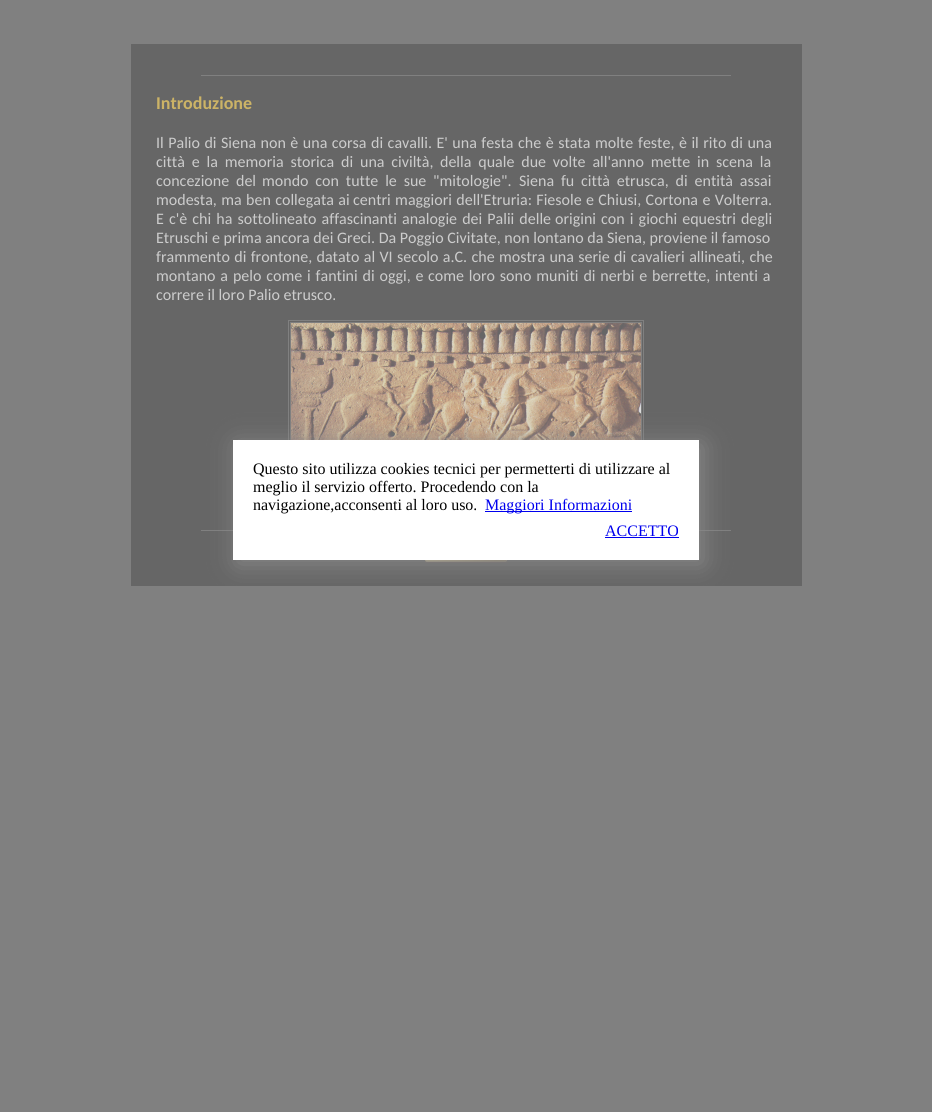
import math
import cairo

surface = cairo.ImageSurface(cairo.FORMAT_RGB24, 932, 1112)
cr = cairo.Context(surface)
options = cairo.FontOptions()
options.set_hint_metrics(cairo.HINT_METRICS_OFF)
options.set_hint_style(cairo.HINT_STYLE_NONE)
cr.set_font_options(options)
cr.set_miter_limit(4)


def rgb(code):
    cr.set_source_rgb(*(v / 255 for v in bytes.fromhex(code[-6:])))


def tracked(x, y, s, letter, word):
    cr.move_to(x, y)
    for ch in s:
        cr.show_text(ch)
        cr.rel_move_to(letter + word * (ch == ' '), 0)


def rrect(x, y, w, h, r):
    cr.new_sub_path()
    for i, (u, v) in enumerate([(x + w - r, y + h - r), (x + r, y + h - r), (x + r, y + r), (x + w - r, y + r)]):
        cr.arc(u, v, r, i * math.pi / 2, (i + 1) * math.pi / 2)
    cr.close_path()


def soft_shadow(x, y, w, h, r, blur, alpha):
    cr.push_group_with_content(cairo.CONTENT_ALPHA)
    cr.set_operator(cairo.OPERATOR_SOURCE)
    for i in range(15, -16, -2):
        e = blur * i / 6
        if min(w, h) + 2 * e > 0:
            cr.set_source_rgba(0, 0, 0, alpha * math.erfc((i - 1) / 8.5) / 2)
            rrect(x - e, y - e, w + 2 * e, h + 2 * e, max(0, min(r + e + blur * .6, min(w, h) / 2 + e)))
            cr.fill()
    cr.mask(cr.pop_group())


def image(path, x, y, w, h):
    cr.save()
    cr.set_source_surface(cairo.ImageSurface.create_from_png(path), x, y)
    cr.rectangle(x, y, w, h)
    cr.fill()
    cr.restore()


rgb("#808080")
cr.paint()
rgb("#666666")
cr.rectangle(131, 44, 671, 542)
cr.fill()
rgb("#808080")
cr.rectangle(201, 75, 530, 1)
cr.fill()
cr.rectangle(288.5, 320.5, 355, 156)
cr.set_line_width(1)
cr.stroke()
cr.rectangle(290.5, 322.5, 351, 152)
cr.stroke()
image("img/1.png", 291, 323, 350, 117)
cr.rectangle(201, 530, 530, 1)
cr.fill()
image("img/2.png", 425, 560, 83, 3)
rgb("#888888")
soft_shadow(237, 444, 466, 120, 0, 12.5, 1)
for x, y, w, h, color in [
    (233, 440, 466, 120, "#ffffff"),
    (485, 511, 147, 1, "#0000ee"),
    (605, 537, 74, 1, "#0000ee"),
]:
    rgb(color)
    cr.rectangle(x, y, w, h)
    cr.fill()
cr.select_font_face("Carlito", cairo.FONT_SLANT_NORMAL, cairo.FONT_WEIGHT_BOLD)
cr.set_font_size(18)
rgb("#ccb366")
cr.move_to(156, 109)
cr.show_text("Introduzione")
cr.select_font_face("Carlito")
cr.set_font_size(16)
rgb("#cccccc")
for x, y, s in [
    (156, 148, "Il Palio di"),
    (221, 148, "Siena non è una corsa di cavalli. E' una festa che è stata molte"),
    (638, 148, "feste, è il rito di una"),
]:
    tracked(x, y, s, 0, 0.9)
for x, y, s in [
    (156, 167, "città e la memoria storica di una civiltà,"),
    (440, 167, "della quale due volte all'anno mette in scena la"),
    (156, 186, "concezione del"),
    (262, 186, "mondo con tutte le sue \"mitologie\"."),
    (519, 186, "Siena fu città etrusca, di entità assai"),
]:
    tracked(x, y, s, 0, 3.25)
tracked(156, 205, "modesta, ma ben collegata ai", 0, 0.75)
tracked(353, 205, "centri maggiori dell'Etruria: Fiesole e Chiusi, Cortona e Volterra.", 0, 0.75)
tracked(156, 224, "E c'è chi ha sottolineato affascinanti analogie dei Palii delle", 0, 1.5)
tracked(555, 224, "origini con i giochi equestri degli", 0, 1.5)
cr.move_to(156, 243)
cr.show_text("Etruschi e prima ancora dei Greci. Da Poggio Civitate, non lontano da Siena, proviene il famoso")
tracked(156, 262, "frammento di frontone, datato al VI secolo a.C. che mostra una serie", 0, 0.75)
tracked(614, 262, "di cavalieri allineati, che", 0, 1)
tracked(156, 281, "montano a pelo come i fantini di oggi, e", 0, 1.25)
tracked(428, 281, "come loro sono muniti di nerbi e berrette, intenti a", 0, 1.25)
cr.move_to(156, 300)
cr.show_text("correre il loro Palio etrusco.")
cr.select_font_face("Liberation Serif")
rgb("#000000")
for x, y, s in [
    (253, 474, "Questo sito utilizza cookies tecnici per permetterti di utilizzare al"),
    (253, 492, "meglio il servizio offerto. Procedendo con la"),
    (253, 510, "navigazione,acconsenti al loro uso."),
]:
    cr.move_to(x, y)
    cr.show_text(s)
rgb("#0000ee")
cr.move_to(485, 510)
cr.show_text("Maggiori Informazioni")
cr.move_to(605, 536)
cr.show_text("ACCETTO")
surface.write_to_png("page.png")
